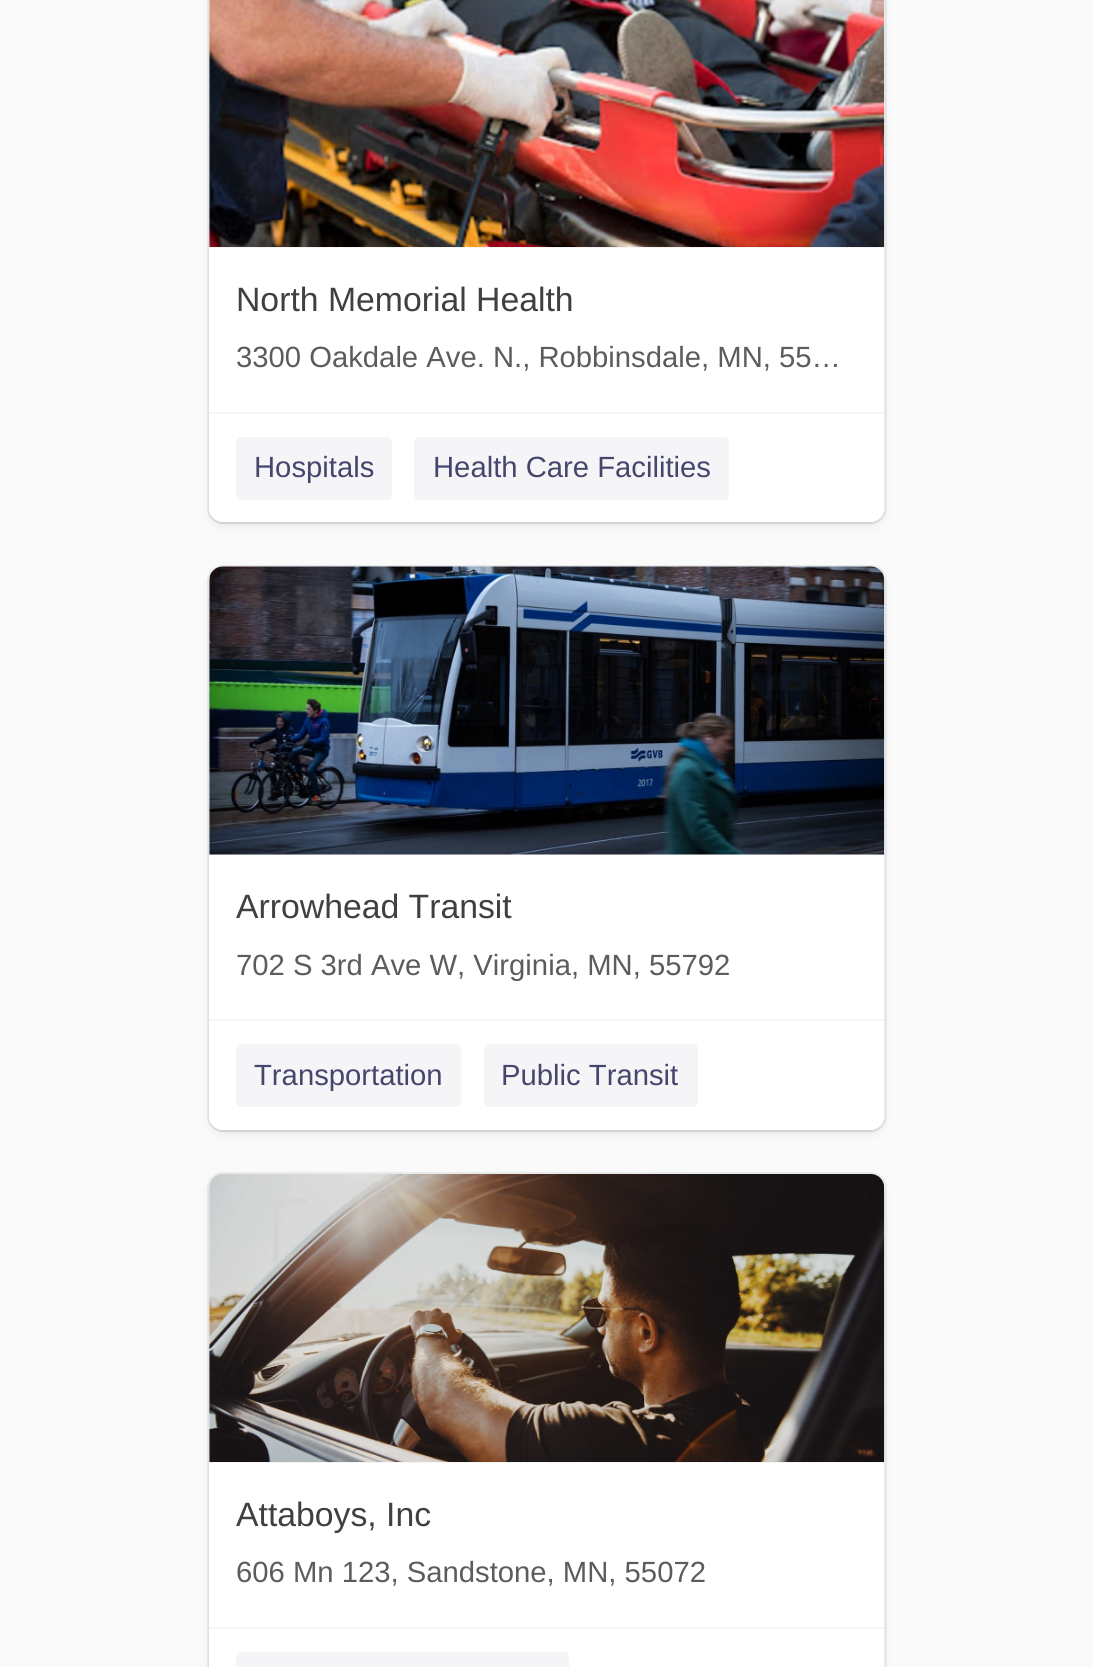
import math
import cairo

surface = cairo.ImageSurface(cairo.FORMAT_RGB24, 1093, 1667)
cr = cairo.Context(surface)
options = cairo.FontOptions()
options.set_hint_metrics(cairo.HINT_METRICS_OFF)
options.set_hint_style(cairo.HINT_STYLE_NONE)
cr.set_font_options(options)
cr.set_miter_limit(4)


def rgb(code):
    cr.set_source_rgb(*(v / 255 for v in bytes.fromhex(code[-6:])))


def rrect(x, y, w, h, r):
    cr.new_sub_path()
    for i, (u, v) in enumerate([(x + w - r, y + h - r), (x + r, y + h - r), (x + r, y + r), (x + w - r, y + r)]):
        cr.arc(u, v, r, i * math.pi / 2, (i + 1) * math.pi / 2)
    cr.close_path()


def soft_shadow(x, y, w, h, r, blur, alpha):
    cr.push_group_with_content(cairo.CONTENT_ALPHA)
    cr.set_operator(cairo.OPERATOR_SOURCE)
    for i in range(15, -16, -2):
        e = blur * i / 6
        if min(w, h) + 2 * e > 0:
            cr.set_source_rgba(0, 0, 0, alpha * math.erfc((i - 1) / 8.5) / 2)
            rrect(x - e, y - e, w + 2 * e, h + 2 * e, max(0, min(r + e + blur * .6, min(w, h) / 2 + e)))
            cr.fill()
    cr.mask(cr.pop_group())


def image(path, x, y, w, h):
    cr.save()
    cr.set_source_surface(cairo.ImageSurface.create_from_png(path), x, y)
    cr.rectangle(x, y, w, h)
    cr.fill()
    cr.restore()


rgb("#fafafa")
cr.paint()
rgb("#3c4257")
soft_shadow(209, -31, 675, 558, 14, 5.5, 0.08)
rrect(208, -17, 678, 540, 15)
cr.set_source_rgba(0.235, 0.259, 0.341, 0.08)
cr.stroke()
rgb("#000000")
soft_shadow(209, -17, 675, 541, 14, 1, 0.08)
rgb("#ffffff")
rrect(209, -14, 675, 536, 14)
cr.fill()
rgb("#f5f5f5")
cr.rectangle(209, 0, 675, 248)
cr.fill()
image("img/1.png", 209, 0, 676, 247)
rgb("#ffffff")
cr.new_path()
cr.move_to(209, 412)
cr.line_to(884, 412)
cr.line_to(884, 508)
cr.curve_to(884, 515.5, 877.5, 522, 870, 522)
cr.line_to(223, 522)
cr.curve_to(215.5, 522, 209, 515.5, 209, 508)
cr.close_path()
cr.fill()
rgb("#f1f7fb")
cr.rectangle(209, 412, 675, 2)
cr.fill()
rgb("#f5f5f7")
rrect(236, 437, 156, 63, 5)
cr.fill()
rrect(414, 437, 315, 63, 5)
cr.fill()
rgb("#3c4257")
soft_shadow(209, 572, 675, 562, 14, 5.5, 0.08)
rrect(208, 566, 678, 565, 15)
cr.set_source_rgba(0.235, 0.259, 0.341, 0.08)
cr.stroke()
rgb("#000000")
soft_shadow(209, 569, 675, 563, 14, 1, 0.08)
rgb("#ffffff")
rrect(209, 567, 675, 563, 14)
cr.fill()
rgb("#f5f5f5")
cr.new_path()
cr.move_to(223, 567)
cr.line_to(870, 567)
cr.curve_to(877.5, 567, 884, 573.5, 884, 581)
cr.line_to(884, 855)
cr.line_to(209, 855)
cr.line_to(209, 581)
cr.curve_to(209, 573.5, 215.5, 567, 223, 567)
cr.close_path()
cr.fill()
image("img/2.png", 209, 566, 676, 289)
rgb("#ffffff")
cr.new_path()
cr.move_to(209, 1019)
cr.line_to(884, 1019)
cr.line_to(884, 1116)
cr.curve_to(884, 1123.5, 877.5, 1130, 870, 1130)
cr.line_to(223, 1130)
cr.curve_to(215.5, 1130, 209, 1123.5, 209, 1116)
cr.close_path()
cr.fill()
rgb("#f1f7fb")
cr.rectangle(209, 1019, 675, 2)
cr.fill()
rgb("#f5f5f7")
rrect(236, 1044, 225, 63, 5)
cr.fill()
rrect(484, 1044, 214, 63, 5)
cr.fill()
rgb("#3c4257")
soft_shadow(209, 1179, 675, 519, 14, 5.5, 0.08)
rrect(208, 1173, 678, 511, 15)
cr.set_source_rgba(0.235, 0.259, 0.341, 0.08)
cr.stroke()
rgb("#000000")
soft_shadow(209, 1177, 675, 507, 14, 1, 0.08)
rgb("#ffffff")
rrect(209, 1175, 675, 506, 14)
cr.fill()
rgb("#f5f5f5")
cr.new_path()
cr.move_to(223, 1175)
cr.line_to(870, 1175)
cr.curve_to(877.5, 1175, 884, 1181.5, 884, 1189)
cr.line_to(884, 1463)
cr.line_to(209, 1463)
cr.line_to(209, 1189)
cr.curve_to(209, 1181.5, 215.5, 1175, 223, 1175)
cr.close_path()
cr.fill()
image("img/3.png", 209, 1174, 676, 288)
rgb("#f1f7fb")
cr.rectangle(209, 1627, 675, 2)
cr.fill()
rgb("#f5f5f7")
rrect(236, 1652, 333, 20, 5)
cr.fill()
cr.select_font_face("Liberation Sans")
cr.set_font_size(33.75)
rgb("#404040")
cr.move_to(236, 311)
cr.show_text("North Memorial Health")
cr.set_font_size(29.25)
rgb("#5c5c5c")
cr.move_to(236, 367)
cr.show_text("3300 Oakdale Ave. N., Robbinsdale, MN, 55…")
rgb("#46466c")
cr.move_to(254, 477)
cr.show_text("Hospitals")
cr.move_to(433, 477)
cr.show_text("Health Care Facilities")
cr.set_font_size(33.75)
rgb("#404040")
cr.move_to(236, 918)
cr.show_text("Arrowhead Transit")
cr.set_font_size(29.25)
rgb("#5c5c5c")
cr.move_to(236, 975)
cr.show_text("702 S 3rd Ave W, Virginia, MN, 55792")
rgb("#46466c")
cr.move_to(254, 1085)
cr.show_text("Transportation")
cr.move_to(501, 1085)
cr.show_text("Public Transit")
cr.set_font_size(33.75)
rgb("#404040")
cr.move_to(236, 1526)
cr.show_text("Attaboys, Inc")
cr.set_font_size(29.25)
rgb("#5c5c5c")
cr.move_to(236, 1582)
cr.show_text("606 Mn 123, Sandstone, MN, 55072")
surface.write_to_png("page.png")
